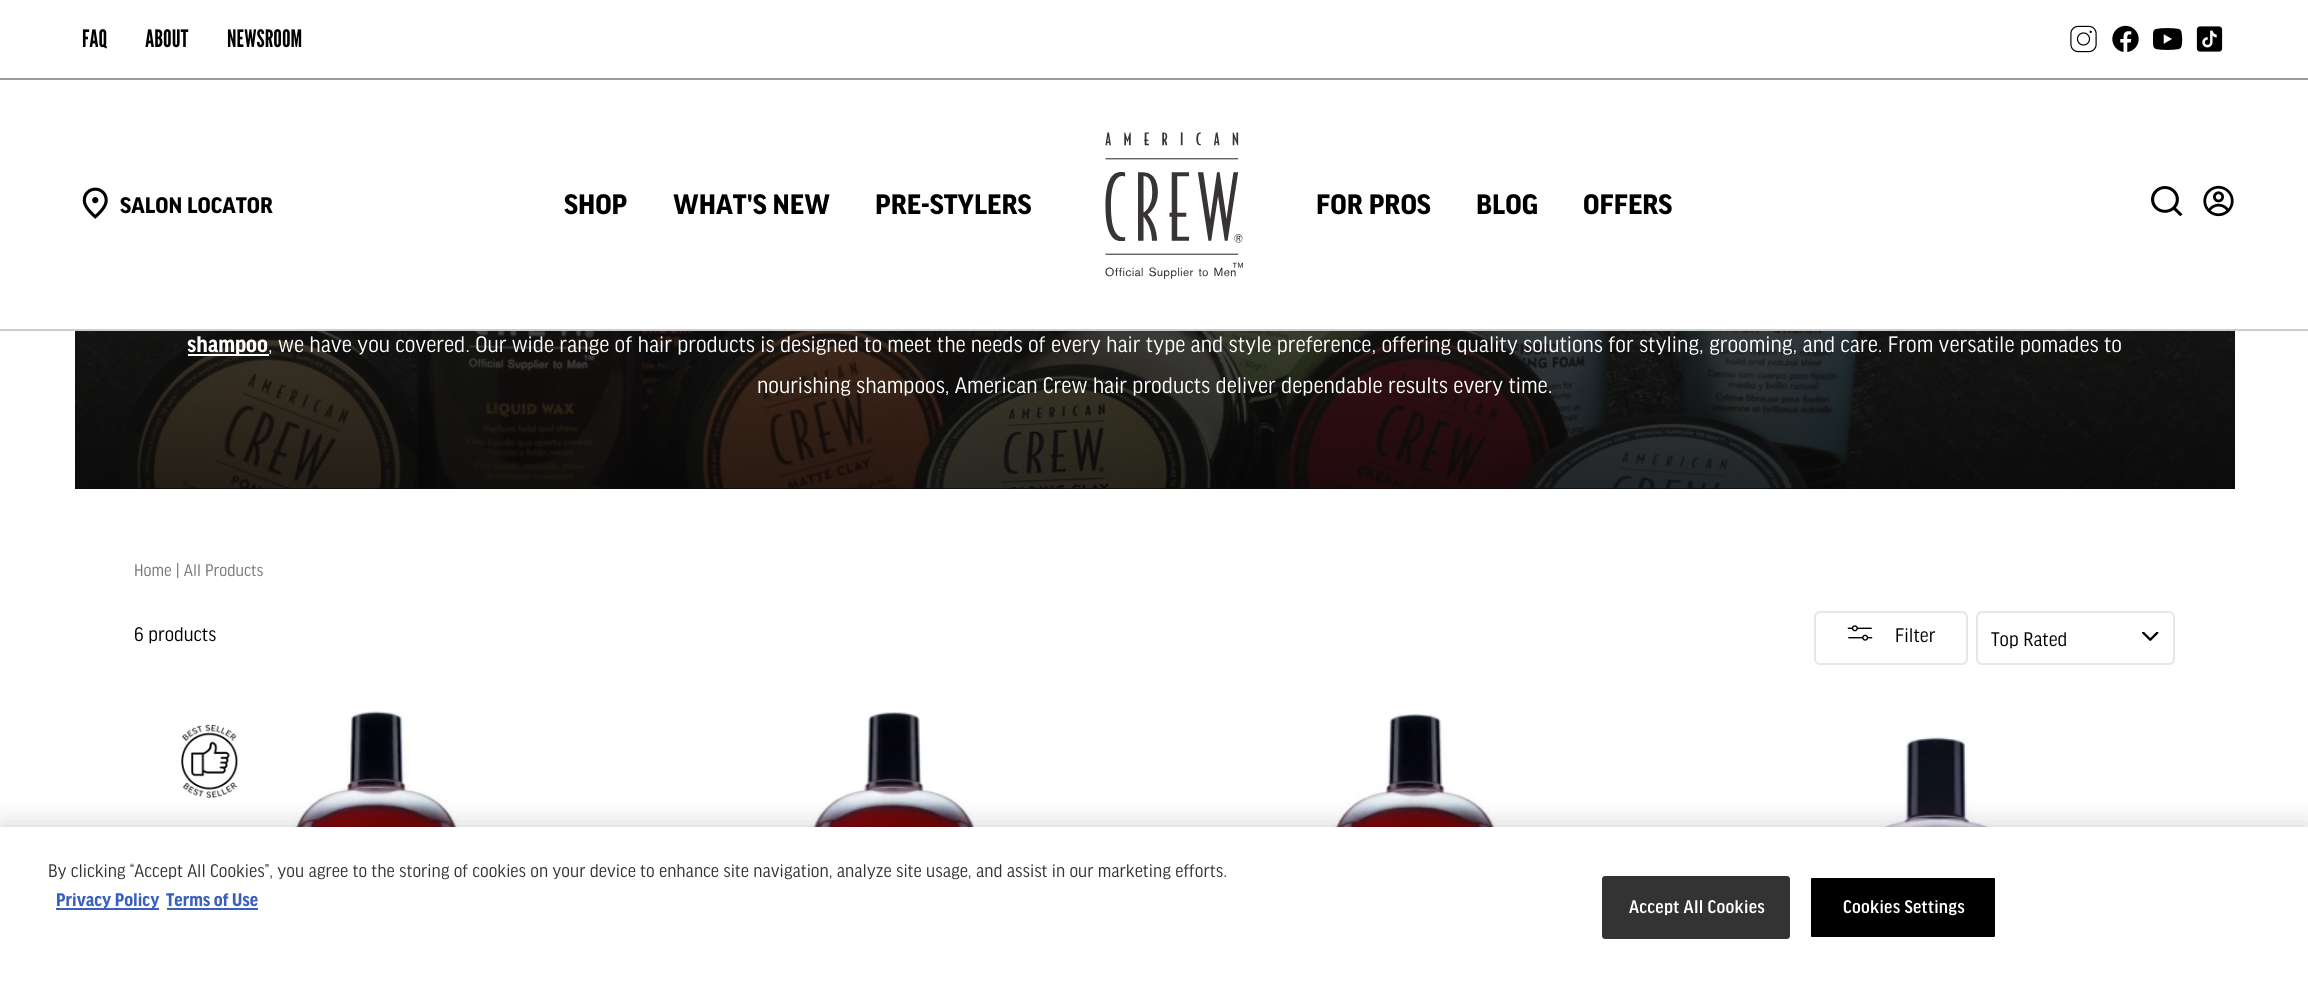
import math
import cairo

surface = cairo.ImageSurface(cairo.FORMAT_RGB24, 2308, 992)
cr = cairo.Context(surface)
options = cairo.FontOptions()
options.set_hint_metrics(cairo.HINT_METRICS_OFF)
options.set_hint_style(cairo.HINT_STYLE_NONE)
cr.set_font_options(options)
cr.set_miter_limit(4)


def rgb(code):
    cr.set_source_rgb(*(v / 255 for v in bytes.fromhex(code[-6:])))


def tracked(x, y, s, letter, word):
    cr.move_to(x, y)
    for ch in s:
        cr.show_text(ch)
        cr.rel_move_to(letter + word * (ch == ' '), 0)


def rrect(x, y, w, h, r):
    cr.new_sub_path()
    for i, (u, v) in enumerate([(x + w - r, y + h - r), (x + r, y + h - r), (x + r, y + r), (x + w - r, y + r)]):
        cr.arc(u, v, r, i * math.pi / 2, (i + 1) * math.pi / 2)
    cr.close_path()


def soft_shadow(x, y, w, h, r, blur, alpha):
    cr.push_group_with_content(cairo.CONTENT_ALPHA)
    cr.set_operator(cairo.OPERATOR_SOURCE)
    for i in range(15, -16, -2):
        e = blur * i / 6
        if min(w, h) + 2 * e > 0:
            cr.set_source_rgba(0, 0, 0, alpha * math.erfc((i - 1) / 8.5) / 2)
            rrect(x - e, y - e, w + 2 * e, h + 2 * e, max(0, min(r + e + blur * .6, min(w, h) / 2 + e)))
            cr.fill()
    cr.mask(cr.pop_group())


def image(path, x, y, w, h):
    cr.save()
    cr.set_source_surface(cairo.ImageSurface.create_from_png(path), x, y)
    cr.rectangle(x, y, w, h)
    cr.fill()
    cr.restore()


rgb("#ffffff")
cr.paint()
rgb("#cccccc")
cr.rectangle(0, 329, 2308, 2)
cr.fill()
rgb("#9a9a9a")
cr.rectangle(0, 78, 2308, 2)
cr.fill()
image("img/1.png", 2070, 25, 27, 28)
image("img/2.png", 2112, 25, 27, 27)
image("img/3.png", 2153, 28, 30, 22)
image("img/4.png", 2196, 26, 27, 26)
image("img/5.png", 82, 187, 26, 32)
image("img/6.png", 1105, 132, 138, 147)
image("img/7.png", 2151, 186, 32, 31)
image("img/8.png", 2203, 185, 31, 32)
rgb("#212121")
cr.rectangle(75, 488, 2160, 1)
cr.fill()
image("img/9.png", 75, 331, 2160, 158)
gradient = cairo.LinearGradient(1155, 665, 1155, -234)
gradient.add_color_stop_rgba(0, 0, 0, 0, 0.9)
gradient.add_color_stop_rgba(1, 0, 0, 0, 0)
cr.set_source(gradient)
cr.rectangle(75, 331, 2160, 158)
cr.fill()
rgb("#ffffff")
cr.rectangle(188, 354, 81, 2)
cr.fill()
rrect(1815, 612, 152, 52, 5)
rgb("#e8e8e1")
cr.stroke()
image("img/10.png", 1847, 625, 26, 16)
image("img/11.png", 2142, 632, 17, 9)
rrect(1977, 612, 197, 52, 5)
cr.stroke()
image("img/12.png", 181, 724, 57, 75)
image("img/13.png", 292, 711, 170, 116)
image("img/14.png", 809, 712, 170, 115)
image("img/15.png", 1330, 713, 174, 114)
image("img/16.png", 1857, 735, 159, 92)
rgb("#000000")
soft_shadow(0, 827, 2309, 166, 0, 13.5, 0.2)
for x, y, w, h, color in [
    (0, 827, 2308, 165, "#ffffff"),
    (56, 908, 103, 2, "#3860be"),
    (167, 908, 91, 2, "#3860be"),
]:
    rgb(color)
    cr.rectangle(x, y, w, h)
    cr.fill()
rgb("#333333")
rrect(1603, 877, 186, 61, 2)
cr.fill_preserve()
cr.stroke()
rgb("#000000")
rrect(1810, 877, 186, 61, 2)
cr.fill_preserve()
rgb("#ffffff")
cr.stroke()
cr.select_font_face("League Gothic")
cr.set_font_size(24)
rgb("#000000")
for x, y, s in [
    (82, 47, "FAQ"),
    (145, 47, "ABOUT"),
    (227, 47, "NEWSROOM"),
]:
    cr.move_to(x, y)
    cr.show_text(s)
cr.select_font_face("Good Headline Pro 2", cairo.FONT_SLANT_NORMAL, cairo.FONT_WEIGHT_BOLD)
cr.move_to(120, 213)
cr.show_text("SALON LOCATOR")
cr.set_font_size(30)
for x, y, s in [
    (564, 214, "SHOP"),
    (673, 214, "WHAT'S NEW"),
    (875, 214, "PRE-STYLERS"),
    (1316, 214, "FOR PROS"),
    (1476, 214, "BLOG"),
    (1583, 214, "OFFERS"),
]:
    cr.move_to(x, y)
    cr.show_text(s)
cr.select_font_face("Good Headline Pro", cairo.FONT_SLANT_NORMAL, cairo.FONT_WEIGHT_BOLD)
cr.set_font_size(24)
rgb("#ffffff")
cr.move_to(187, 352)
cr.show_text("shampoo")
cr.select_font_face("Good Headline Pro")
cr.move_to(268, 352)
cr.show_text(", we have you covered. Our wide range of hair products is designed to meet the needs of every hair type and style preference, offering quality solutions for styling, grooming, and care. From versatile pomades to")
cr.move_to(757, 393)
cr.show_text("nourishing shampoos, American Crew hair products deliver dependable results every time.")
cr.set_font_size(18)
rgb("#757575")
cr.move_to(134, 576)
cr.show_text("Home | All Products")
cr.set_font_size(21)
rgb("#000000")
for x, y, s in [
    (134, 641, "6 products"),
    (1895, 642, "Filter"),
    (1991, 646, "Top Rated"),
]:
    cr.move_to(x, y)
    cr.show_text(s)
cr.set_font_size(19.5)
rgb("#333333")
cr.move_to(48, 877)
cr.show_text("By clicking “Accept All Cookies”, you agree to the storing of cookies on your device to enhance site navigation, analyze site usage, and assist in our marketing efforts.")
cr.select_font_face("Good Headline Pro", cairo.FONT_SLANT_NORMAL, cairo.FONT_WEIGHT_BOLD)
rgb("#3860be")
cr.move_to(56, 906)
cr.show_text("Privacy Policy")
cr.move_to(166, 906)
cr.show_text("Terms of Use")
cr.select_font_face("Good Headline Pro Medium")
rgb("#ffffff")
tracked(1629, 913, "Accept All Cookies", 0.25, 0)
tracked(1843, 913, "Cookies Settings", 0.25, 0)
surface.write_to_png("page.png")
